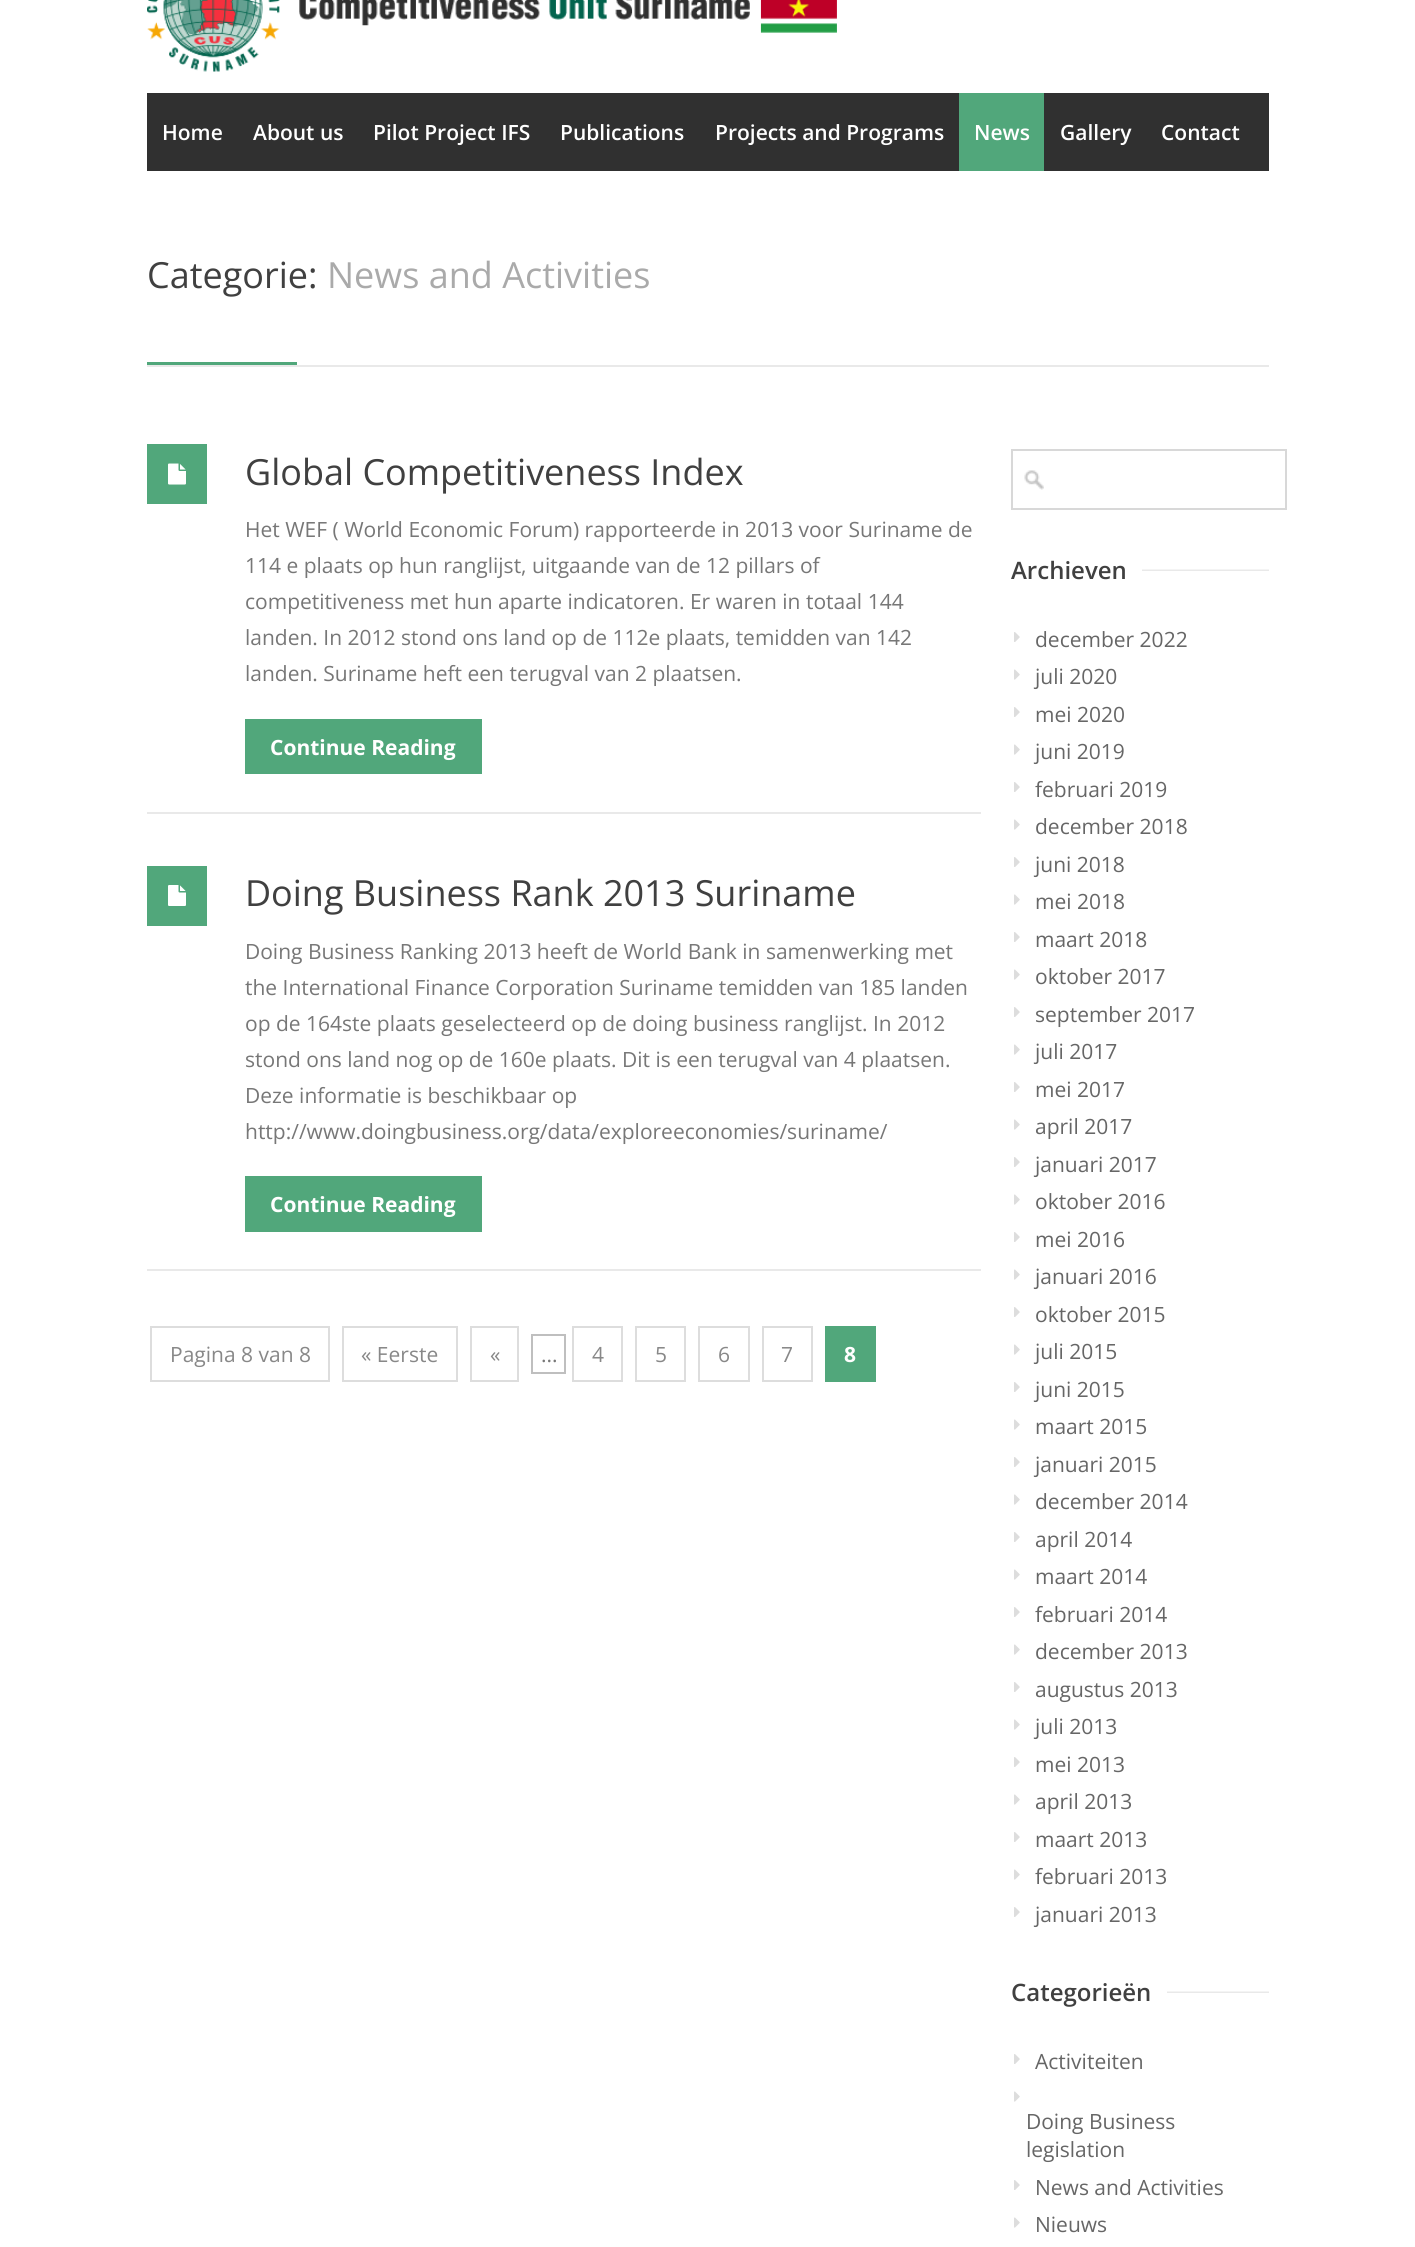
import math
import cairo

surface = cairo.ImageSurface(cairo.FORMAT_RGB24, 1415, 2247)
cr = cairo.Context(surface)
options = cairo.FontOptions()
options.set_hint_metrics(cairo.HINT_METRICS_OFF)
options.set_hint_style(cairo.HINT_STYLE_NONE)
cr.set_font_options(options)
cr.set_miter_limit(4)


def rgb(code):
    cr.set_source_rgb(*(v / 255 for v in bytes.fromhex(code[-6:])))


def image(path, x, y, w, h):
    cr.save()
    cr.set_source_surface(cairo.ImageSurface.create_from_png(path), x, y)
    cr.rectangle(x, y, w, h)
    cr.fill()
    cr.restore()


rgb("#ffffff")
cr.paint()
image("img/1.png", 147, 0, 690, 72)
for x, y, w, h, color in [
    (147, 93, 1122, 78, "#303030"),
    (959, 93, 85, 78, "#51a77b"),
    (147, 365, 1122, 2, "#e9e9e9"),
    (147, 362, 150, 3, "#51a77b"),
    (147, 812, 834, 2, "#e9e9e9"),
    (147, 444, 60, 60, "#51a77b"),
]:
    rgb(color)
    cr.rectangle(x, y, w, h)
    cr.fill()
image("img/2.png", 168, 463, 18, 22)
for x, y, w, h, color in [
    (245, 719, 237, 55, "#51a77b"),
    (147, 1269, 834, 2, "#e9e9e9"),
    (147, 866, 60, 60, "#51a77b"),
]:
    rgb(color)
    cr.rectangle(x, y, w, h)
    cr.fill()
image("img/3.png", 168, 885, 18, 21)
cr.rectangle(245, 1176, 237, 56)
cr.fill()
cr.rectangle(151, 1327, 178, 54)
rgb("#dddddd")
cr.stroke()
cr.rectangle(343, 1327, 114, 54)
cr.stroke()
cr.rectangle(471, 1327, 47, 54)
cr.stroke()
cr.rectangle(532, 1335, 33, 38)
rgb("#bfbfbf")
cr.stroke()
cr.rectangle(573, 1327, 49, 54)
rgb("#dddddd")
cr.stroke()
cr.rectangle(636, 1327, 49, 54)
cr.stroke()
cr.rectangle(699, 1327, 50, 54)
cr.stroke()
cr.rectangle(763, 1327, 49, 54)
cr.stroke()
rgb("#51a77b")
cr.rectangle(825, 1326, 51, 56)
cr.fill()
image("img/4.png", 1024, 470, 20, 20)
cr.rectangle(1012, 450, 274, 59)
rgb("#d8d8d8")
cr.stroke()
image("img/5.png", 1142, 569, 127, 2)
image("img/6.png", 1014, 632, 6, 10)
image("img/7.png", 1014, 669, 6, 11)
image("img/6.png", 1014, 707, 6, 10)
image("img/7.png", 1014, 744, 6, 11)
image("img/6.png", 1014, 782, 6, 10)
image("img/7.png", 1014, 819, 6, 11)
image("img/6.png", 1014, 857, 6, 10)
image("img/7.png", 1014, 894, 6, 11)
image("img/6.png", 1014, 932, 6, 10)
image("img/7.png", 1014, 969, 6, 11)
image("img/6.png", 1014, 1007, 6, 10)
image("img/7.png", 1014, 1044, 6, 11)
image("img/6.png", 1014, 1082, 6, 10)
image("img/7.png", 1014, 1119, 6, 11)
image("img/6.png", 1014, 1157, 6, 10)
image("img/7.png", 1014, 1194, 6, 11)
image("img/6.png", 1014, 1232, 6, 10)
image("img/7.png", 1014, 1269, 6, 11)
image("img/6.png", 1014, 1307, 6, 10)
image("img/7.png", 1014, 1344, 6, 11)
image("img/6.png", 1014, 1382, 6, 10)
image("img/7.png", 1014, 1419, 6, 11)
image("img/6.png", 1014, 1457, 6, 10)
image("img/7.png", 1014, 1494, 6, 11)
image("img/6.png", 1014, 1532, 6, 10)
image("img/7.png", 1014, 1569, 6, 11)
image("img/6.png", 1014, 1607, 6, 10)
image("img/7.png", 1014, 1644, 6, 11)
image("img/6.png", 1014, 1682, 6, 10)
image("img/7.png", 1014, 1719, 6, 11)
image("img/6.png", 1014, 1757, 6, 10)
image("img/7.png", 1014, 1794, 6, 11)
image("img/6.png", 1014, 1832, 6, 10)
image("img/7.png", 1014, 1869, 6, 11)
image("img/6.png", 1014, 1907, 6, 10)
image("img/8.png", 1167, 1991, 102, 2)
image("img/6.png", 1014, 2054, 6, 10)
image("img/7.png", 1014, 2091, 6, 11)
image("img/6.png", 1014, 2180, 6, 10)
image("img/7.png", 1014, 2217, 6, 11)
cr.select_font_face("Open Sans SemiBold")
cr.set_font_size(21)
rgb("#ffffff")
for x, y, s in [
    (162, 140, "Home"),
    (253, 140, "About us"),
    (373, 140, "Pilot Project IFS"),
    (560, 140, "Publications"),
    (715, 140, "Projects and Programs"),
    (974, 140, "News"),
    (1060, 140, "Gallery"),
    (1161, 140, "Contact"),
]:
    cr.move_to(x, y)
    cr.show_text(s)
cr.select_font_face("Open Sans")
cr.set_font_size(36)
rgb("#404040")
cr.move_to(147, 288)
cr.show_text("Categorie:")
rgb("#aaaaaa")
cr.move_to(327, 288)
cr.show_text("News and Activities")
rgb("#404040")
cr.move_to(245, 485)
cr.show_text("Global Competitiveness Index")
cr.set_font_size(21)
rgb("#777777")
for x, y, s in [
    (245, 537, "Het WEF ( World Economic Forum) rapporteerde in 2013 voor Suriname de"),
    (245, 573, "114 e plaats op hun ranglijst, uitgaande van de 12 pillars of"),
    (245, 609, "competitiveness met hun aparte indicatoren. Er waren in totaal 144"),
    (245, 645, "landen. In 2012 stond ons land op de 112e plaats, temidden van 142"),
    (245, 681, "landen. Suriname heft een terugval van 2 plaatsen."),
]:
    cr.move_to(x, y)
    cr.show_text(s)
cr.select_font_face("Open Sans", cairo.FONT_SLANT_NORMAL, cairo.FONT_WEIGHT_BOLD)
rgb("#ffffff")
cr.move_to(270, 755)
cr.show_text("Continue Reading")
cr.select_font_face("Open Sans")
cr.set_font_size(36)
rgb("#404040")
cr.move_to(245, 906)
cr.show_text("Doing Business Rank 2013 Suriname")
cr.set_font_size(21)
rgb("#777777")
for x, y, s in [
    (245, 959, "Doing Business Ranking 2013 heeft de World Bank in samenwerking met"),
    (245, 995, "the International Finance Corporation Suriname temidden van 185 landen"),
    (245, 1031, "op de 164ste plaats geselecteerd op de doing business ranglijst. In 2012"),
    (245, 1067, "stond ons land nog op de 160e plaats. Dit is een terugval van 4 plaatsen."),
    (245, 1103, "Deze informatie is beschikbaar op"),
    (245, 1139, "http://www.doingbusiness.org/data/exploreeconomies/suriname/"),
]:
    cr.move_to(x, y)
    cr.show_text(s)
cr.select_font_face("Open Sans", cairo.FONT_SLANT_NORMAL, cairo.FONT_WEIGHT_BOLD)
rgb("#ffffff")
cr.move_to(270, 1212)
cr.show_text("Continue Reading")
cr.select_font_face("Open Sans")
rgb("#888888")
for x, y, s in [
    (170, 1362, "Pagina 8 van 8"),
    (361, 1362, "« Eerste"),
    (490, 1362, "«"),
]:
    cr.move_to(x, y)
    cr.show_text(s)
rgb("#777777")
cr.move_to(541, 1362)
cr.show_text("...")
rgb("#888888")
for x, y, s in [
    (592, 1362, "4"),
    (655, 1362, "5"),
    (718, 1362, "6"),
    (781, 1362, "7"),
]:
    cr.move_to(x, y)
    cr.show_text(s)
cr.select_font_face("Open Sans", cairo.FONT_SLANT_NORMAL, cairo.FONT_WEIGHT_BOLD)
rgb("#ffffff")
cr.move_to(844, 1362)
cr.show_text("8")
cr.select_font_face("Open Sans SemiBold")
cr.set_font_size(24)
rgb("#404040")
cr.move_to(1011, 579)
cr.show_text("Archieven")
cr.select_font_face("Open Sans")
cr.set_font_size(21)
rgb("#666666")
for x, y, s in [
    (1035, 647, "december 2022"),
    (1035, 684, "juli 2020"),
    (1035, 722, "mei 2020"),
    (1035, 759, "juni 2019"),
    (1035, 797, "februari 2019"),
    (1035, 834, "december 2018"),
    (1035, 872, "juni 2018"),
    (1035, 909, "mei 2018"),
    (1035, 947, "maart 2018"),
    (1035, 984, "oktober 2017"),
    (1035, 1022, "september 2017"),
    (1035, 1059, "juli 2017"),
    (1035, 1097, "mei 2017"),
    (1035, 1134, "april 2017"),
    (1035, 1172, "januari 2017"),
    (1035, 1209, "oktober 2016"),
    (1035, 1247, "mei 2016"),
    (1035, 1284, "januari 2016"),
    (1035, 1322, "oktober 2015"),
    (1035, 1359, "juli 2015"),
    (1035, 1397, "juni 2015"),
    (1035, 1434, "maart 2015"),
    (1035, 1472, "januari 2015"),
    (1035, 1509, "december 2014"),
    (1035, 1547, "april 2014"),
    (1035, 1584, "maart 2014"),
    (1035, 1622, "februari 2014"),
    (1035, 1659, "december 2013"),
    (1035, 1697, "augustus 2013"),
    (1035, 1734, "juli 2013"),
    (1035, 1772, "mei 2013"),
    (1035, 1809, "april 2013"),
    (1035, 1847, "maart 2013"),
    (1035, 1884, "februari 2013"),
    (1035, 1922, "januari 2013"),
]:
    cr.move_to(x, y)
    cr.show_text(s)
cr.select_font_face("Open Sans SemiBold")
cr.set_font_size(24)
rgb("#404040")
cr.move_to(1011, 2001)
cr.show_text("Categorieën")
cr.select_font_face("Open Sans")
cr.set_font_size(21)
rgb("#666666")
for x, y, s in [
    (1035, 2069, "Activiteiten"),
    (1026, 2129, "Doing Business"),
    (1026, 2157, "legislation"),
    (1035, 2195, "News and Activities"),
    (1035, 2232, "Nieuws"),
]:
    cr.move_to(x, y)
    cr.show_text(s)
surface.write_to_png("page.png")
